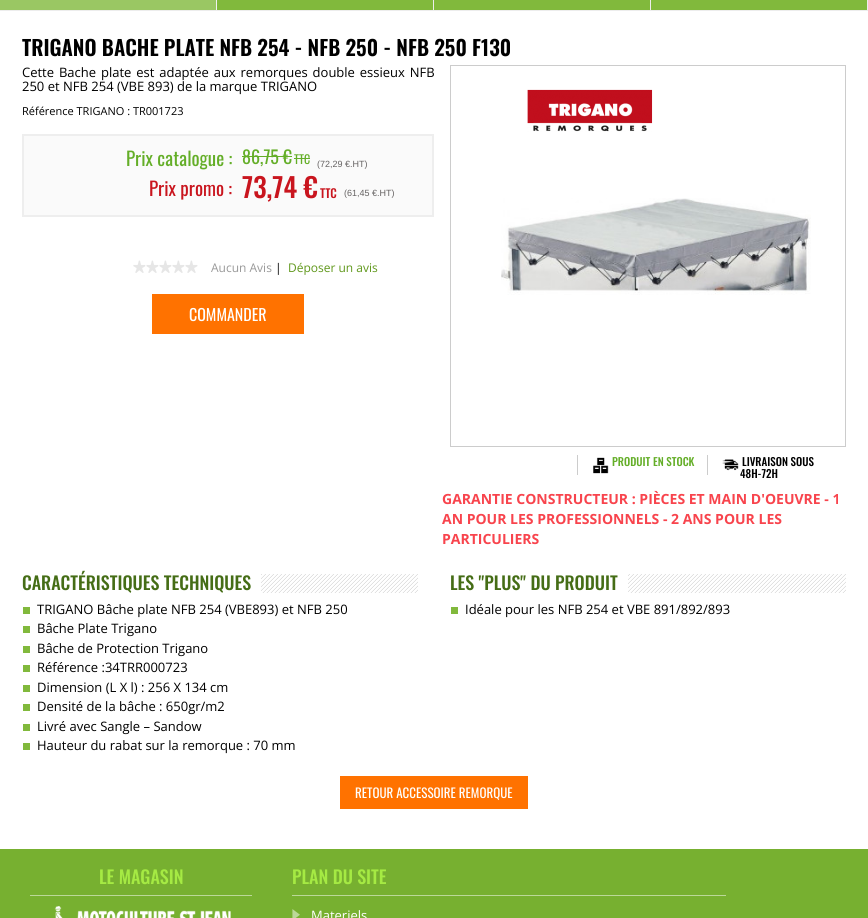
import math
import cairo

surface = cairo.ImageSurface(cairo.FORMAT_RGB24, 868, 918)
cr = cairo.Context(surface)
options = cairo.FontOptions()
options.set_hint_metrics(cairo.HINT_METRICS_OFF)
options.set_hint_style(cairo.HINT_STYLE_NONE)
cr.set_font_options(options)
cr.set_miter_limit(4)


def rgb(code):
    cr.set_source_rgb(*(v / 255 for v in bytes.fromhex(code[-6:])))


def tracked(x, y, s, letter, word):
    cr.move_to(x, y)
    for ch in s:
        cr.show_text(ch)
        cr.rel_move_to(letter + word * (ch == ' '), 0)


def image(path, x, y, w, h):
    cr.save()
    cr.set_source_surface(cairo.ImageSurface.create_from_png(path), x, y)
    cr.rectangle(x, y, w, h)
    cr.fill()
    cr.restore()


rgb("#ffffff")
cr.paint()
for x, y, w, h, color in [
    (0, 10, 868, 1, "#ededed"),
    (0, 0, 216, 10, "#9ac763"),
    (216, 0, 1, 10, "#f1f1f1"),
    (217, 0, 216, 10, "#81b93c"),
    (433, 0, 1, 10, "#ededed"),
    (434, 0, 216, 10, "#81b93c"),
    (650, 0, 1, 10, "#ededed"),
    (651, 0, 216, 10, "#81b93c"),
    (867, 0, 1, 10, "#ededed"),
]:
    rgb(color)
    cr.rectangle(x, y, w, h)
    cr.fill()
cr.rectangle(450.5, 65.5, 395, 381)
rgb("#cccccc")
cr.set_line_width(1)
cr.stroke()
image("img/1.png", 527, 89, 126, 43)
rgb("#fafafa")
cr.rectangle(23, 135, 410, 81)
cr.fill_preserve()
rgb("#eeeeee")
cr.set_line_width(2)
cr.stroke()
rgb("#64ae28")
cr.rectangle(242, 156, 50, 1)
cr.fill()
cr.rectangle(294, 158, 16, 1)
cr.fill()
image("img/2.png", 133, 260, 65, 13)
rgb("#ff7200")
cr.rectangle(152, 294, 152, 40)
cr.fill()
image("img/3.png", 501, 198, 310, 97)
rgb("#cccccc")
cr.rectangle(577, 455, 1, 20)
cr.fill()
cr.rectangle(707, 455, 1, 20)
cr.fill()
image("img/4.png", 593, 457, 16, 17)
image("img/5.png", 722, 459, 17, 12)
image("img/6.png", 261, 574, 157, 19)
for x, y, w, h, color in [
    (23, 607, 7, 7, "#81b93c"),
    (23, 626, 7, 7, "#81b93c"),
    (23, 646, 7, 7, "#81b93c"),
    (23, 665, 7, 7, "#81b93c"),
    (23, 685, 7, 7, "#81b93c"),
    (23, 704, 7, 7, "#81b93c"),
    (23, 724, 7, 7, "#81b93c"),
    (23, 743, 7, 7, "#81b93c"),
]:
    rgb(color)
    cr.rectangle(x, y, w, h)
    cr.fill()
image("img/7.png", 628, 574, 218, 19)
for x, y, w, h, color in [
    (451, 607, 7, 7, "#81b93c"),
    (340, 776, 188, 33, "#ff7200"),
    (0, 849, 868, 69, "#77b030"),
    (30, 895, 222, 1, "#bbd898"),
]:
    rgb(color)
    cr.rectangle(x, y, w, h)
    cr.fill()
image("img/8.png", 54, 906, 177, 12)
cr.rectangle(292, 895, 434, 1)
cr.fill()
image("img/9.png", 292, 909, 8, 9)
cr.select_font_face("Oswald SemiBold")
cr.set_font_size(21)
rgb("#000000")
cr.move_to(22, 56)
cr.show_text("TRIGANO BACHE PLATE NFB 254 - NFB 250 - NFB 250 F130")
cr.select_font_face("Open Sans")
cr.set_font_size(13)
tracked(22, 77, "Cette Bache plate est adaptée aux remorques double essieux NFB", 0, 1.5)
cr.move_to(22, 91)
cr.show_text("250 et NFB 254 (VBE 893) de la marque TRIGANO")
cr.set_font_size(11)
cr.move_to(22, 115)
cr.show_text("Référence TRIGANO : TR001723")
cr.select_font_face("Oswald")
cr.set_font_size(19)
rgb("#64ae28")
cr.move_to(126, 166)
cr.show_text("Prix catalogue :")
cr.set_font_size(18)
cr.move_to(242, 164)
cr.show_text("86,75 €")
cr.set_font_size(12)
cr.move_to(294, 164)
cr.show_text("TTC")
cr.select_font_face("Liberation Sans")
cr.set_font_size(9)
rgb("#656262")
cr.move_to(317, 167)
cr.show_text("(72,29 €.HT)")
cr.select_font_face("Oswald")
cr.set_font_size(19)
rgb("#c9151e")
cr.move_to(149, 196)
cr.show_text("Prix promo :")
cr.select_font_face("Oswald Medium")
cr.set_font_size(27)
cr.move_to(242, 198)
cr.show_text("73,74 €")
cr.set_font_size(12)
cr.move_to(320, 198)
cr.show_text("TTC")
cr.select_font_face("Liberation Sans")
cr.set_font_size(9)
rgb("#656262")
cr.move_to(344, 196)
cr.show_text("(61,45 €.HT)")
cr.select_font_face("Open Sans")
cr.set_font_size(12)
rgb("#999999")
cr.move_to(211, 272)
cr.show_text("Aucun Avis")
rgb("#000000")
cr.move_to(275, 272)
cr.show_text("|")
rgb("#5f971a")
cr.move_to(288, 272)
cr.show_text("Déposer un avis")
cr.select_font_face("Oswald")
cr.set_font_size(16)
rgb("#ffffff")
cr.move_to(189, 321)
cr.show_text("COMMANDER")
cr.select_font_face("Oswald Medium")
cr.set_font_size(11)
rgb("#64ae28")
cr.move_to(612, 466)
cr.show_text("PRODUIT EN STOCK")
rgb("#000000")
cr.move_to(742, 466)
cr.show_text("LIVRAISON SOUS")
cr.move_to(740, 478)
cr.show_text("48H-72H")
cr.select_font_face("Open Sans", cairo.FONT_SLANT_NORMAL, cairo.FONT_WEIGHT_BOLD)
cr.set_font_size(14)
rgb("#f8444d")
for x, y, s in [
    (442, 504, "GARANTIE CONSTRUCTEUR : PIÈCES ET MAIN D'OEUVRE - 1"),
    (442, 524, "AN POUR LES PROFESSIONNELS - 2 ANS POUR LES"),
    (442, 544, "PARTICULIERS"),
]:
    cr.move_to(x, y)
    cr.show_text(s)
cr.select_font_face("Oswald Medium")
cr.set_font_size(18)
rgb("#456d16")
cr.move_to(22, 590)
cr.show_text("CARACTÉRISTIQUES TECHNIQUES")
cr.select_font_face("Open Sans")
cr.set_font_size(13)
rgb("#000000")
for x, y, s in [
    (37, 614, "TRIGANO Bâche plate NFB 254 (VBE893) et NFB 250"),
    (37, 633, "Bâche Plate Trigano"),
    (37, 653, "Bâche de Protection Trigano"),
    (37, 672, "Référence :34TRR000723"),
    (37, 692, "Dimension (L X l) : 256 X 134 cm"),
    (37, 711, "Densité de la bâche : 650gr/m2"),
    (37, 731, "Livré avec Sangle – Sandow"),
    (37, 750, "Hauteur du rabat sur la remorque : 70 mm"),
]:
    cr.move_to(x, y)
    cr.show_text(s)
cr.select_font_face("Oswald Medium")
cr.set_font_size(18)
rgb("#456d16")
cr.move_to(450, 590)
cr.show_text("LES \"PLUS\" DU PRODUIT")
cr.select_font_face("Open Sans")
cr.set_font_size(13)
rgb("#000000")
cr.move_to(465, 614)
cr.show_text("Idéale pour les NFB 254 et VBE 891/892/893")
cr.select_font_face("Oswald")
rgb("#ffffff")
cr.move_to(355, 798)
cr.show_text("RETOUR ACCESSOIRE REMORQUE")
cr.select_font_face("Oswald Medium")
cr.set_font_size(18)
rgb("#a5ea43")
cr.move_to(99, 884)
cr.show_text("LE MAGASIN")
cr.move_to(292, 884)
cr.show_text("PLAN DU SITE")
cr.select_font_face("Open Sans")
cr.set_font_size(13)
rgb("#ffffff")
cr.move_to(311, 920)
cr.show_text("Materiels")
surface.write_to_png("page.png")
